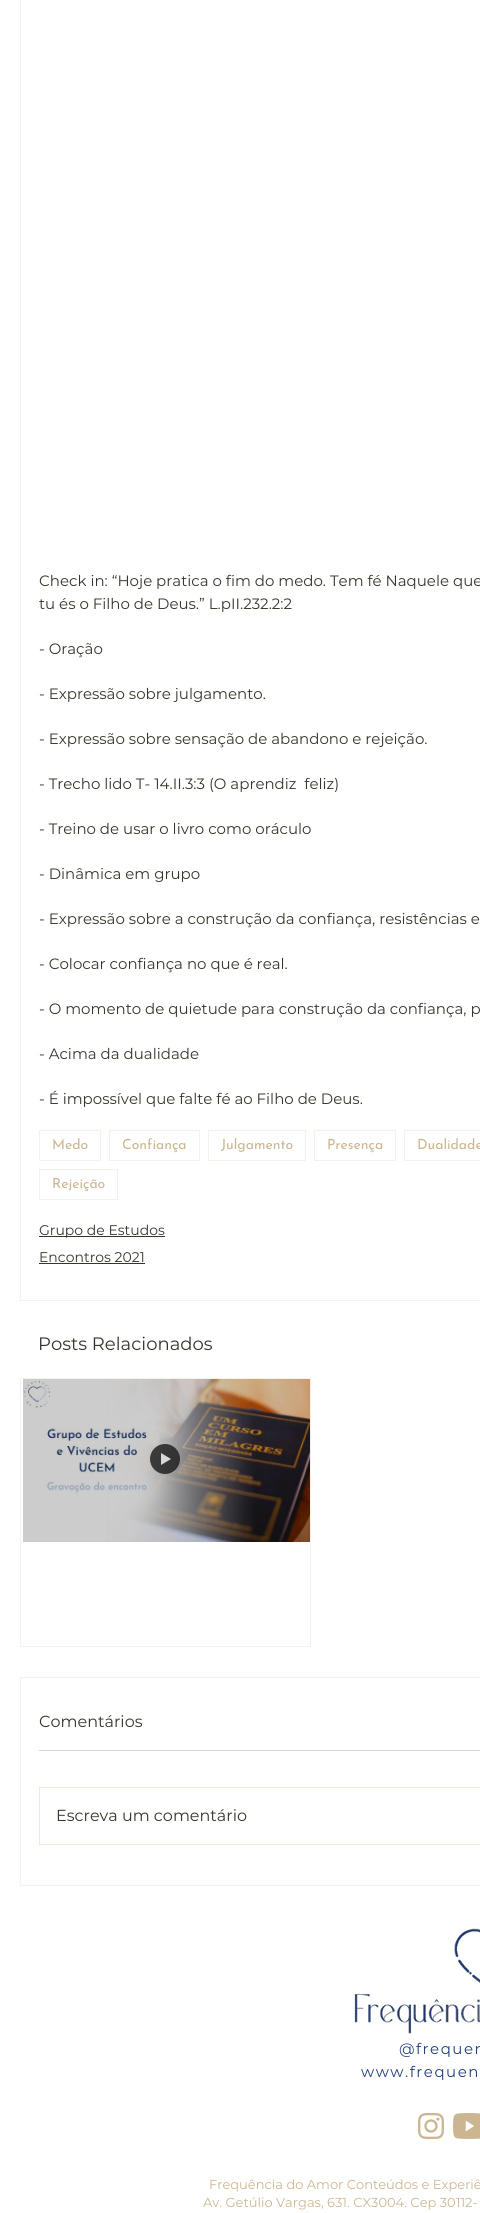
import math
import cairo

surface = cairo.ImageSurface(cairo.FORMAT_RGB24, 480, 2213)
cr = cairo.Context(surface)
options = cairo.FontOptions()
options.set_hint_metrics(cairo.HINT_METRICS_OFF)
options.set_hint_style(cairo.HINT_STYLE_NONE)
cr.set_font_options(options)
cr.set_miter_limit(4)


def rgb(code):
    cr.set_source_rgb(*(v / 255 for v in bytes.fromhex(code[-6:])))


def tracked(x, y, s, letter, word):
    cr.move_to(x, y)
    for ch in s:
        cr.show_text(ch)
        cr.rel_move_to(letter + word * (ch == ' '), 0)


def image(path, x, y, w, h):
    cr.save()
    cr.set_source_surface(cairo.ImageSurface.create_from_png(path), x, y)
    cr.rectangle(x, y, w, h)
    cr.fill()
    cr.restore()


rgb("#ffffff")
cr.paint()
cr.rectangle(20.5, -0.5, 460, 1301)
rgb("#f5f2eb")
cr.set_line_width(1)
cr.stroke()
cr.rectangle(39.5, 1130.5, 61, 30)
rgb("#f5f0e9")
cr.stroke()
cr.rectangle(109.5, 1130.5, 90, 30)
cr.stroke()
cr.rectangle(208.5, 1130.5, 97, 30)
cr.stroke()
cr.rectangle(314.5, 1130.5, 81, 30)
cr.stroke()
cr.rectangle(404.5, 1130.5, 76, 30)
cr.stroke()
cr.rectangle(39.5, 1169.5, 78, 30)
cr.stroke()
rgb("#33372b")
cr.rectangle(39, 1236, 126, 1)
cr.fill()
cr.rectangle(39, 1263, 106, 1)
cr.fill()
cr.rectangle(20.5, 1378.5, 290, 268)
rgb("#f5f2eb")
cr.stroke()
image("img/1.png", 23, 1379, 287, 163)
cr.set_source_rgba(0.102, 0.102, 0.102, 0.8)
cr.arc(165, 1459, 15, 0, 2 * math.pi)
cr.fill()
cr.set_source_rgba(1, 1, 1, 0.8)
cr.new_path()
cr.move_to(161, 1453)
cr.line_to(161, 1465)
cr.line_to(171, 1459)
cr.close_path()
cr.fill()
cr.rectangle(20.5, 1677.5, 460, 208)
rgb("#f5f2eb")
cr.stroke()
rgb("#d6d7d5")
cr.rectangle(39, 1750, 441, 1)
cr.fill()
cr.rectangle(39.5, 1787.5, 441, 57)
rgb("#f0e9de")
cr.stroke()
image("img/2.png", 354, 1928, 126, 106)
image("img/3.png", 418, 2113, 26, 26)
image("img/4.png", 453, 2113, 27, 26)
cr.select_font_face("Montserrat")
cr.set_font_size(15)
rgb("#33372b")
for x, y, s in [
    (39, 586, "Check in: “Hoje pratica o fim do medo. Tem fé Naquele que"),
    (39, 609, "tu és o Filho de Deus.” L.pII.232.2:2"),
    (39, 654, "- Oração"),
    (39, 699, "- Expressão sobre julgamento."),
    (39, 744, "- Expressão sobre sensação de abandono e rejeição."),
    (39, 789, "- Trecho lido T- 14.II.3:3 (O aprendiz  feliz)"),
    (39, 834, "- Treino de usar o livro como oráculo"),
    (39, 879, "- Dinâmica em grupo"),
    (39, 924, "- Expressão sobre a construção da confiança, resistências e"),
    (39, 969, "- Colocar confiança no que é real."),
    (39, 1014, "- O momento de quietude para construção da confiança, p"),
    (39, 1059, "- Acima da dualidade"),
    (39, 1104, "- É impossível que falte fé ao Filho de Deus."),
]:
    cr.move_to(x, y)
    cr.show_text(s)
cr.select_font_face("Josefin Sans")
cr.set_font_size(14)
rgb("#ccb691")
for x, y, s in [
    (52, 1149, "Medo"),
    (122, 1149, "Confiança"),
    (221, 1149, "Julgamento"),
    (327, 1149, "Presença"),
    (417, 1149, "Dualidade"),
    (52, 1188, "Rejeição"),
]:
    cr.move_to(x, y)
    cr.show_text(s)
cr.select_font_face("Montserrat")
rgb("#33372b")
cr.move_to(39, 1235)
cr.show_text("Grupo de Estudos")
cr.move_to(39, 1262)
cr.show_text("Encontros 2021")
cr.set_font_size(18)
cr.move_to(38, 1350)
cr.show_text("Posts Relacionados")
cr.set_font_size(16)
cr.move_to(39, 1727)
cr.show_text("Comentários")
cr.move_to(56, 1821)
cr.show_text("Escreva um comentário")
cr.set_font_size(15)
rgb("#203e7a")
tracked(399, 2054, "@frequen", 1.5, 0)
tracked(361, 2077, "www.frequen", 1.5, 0)
cr.set_font_size(13)
rgb("#ccb691")
cr.move_to(209, 2189)
cr.show_text("Frequência do Amor Conteúdos e Experiê")
cr.move_to(203, 2207)
cr.show_text("Av. Getúlio Vargas, 631. CX3004. Cep 30112-")
surface.write_to_png("page.png")
